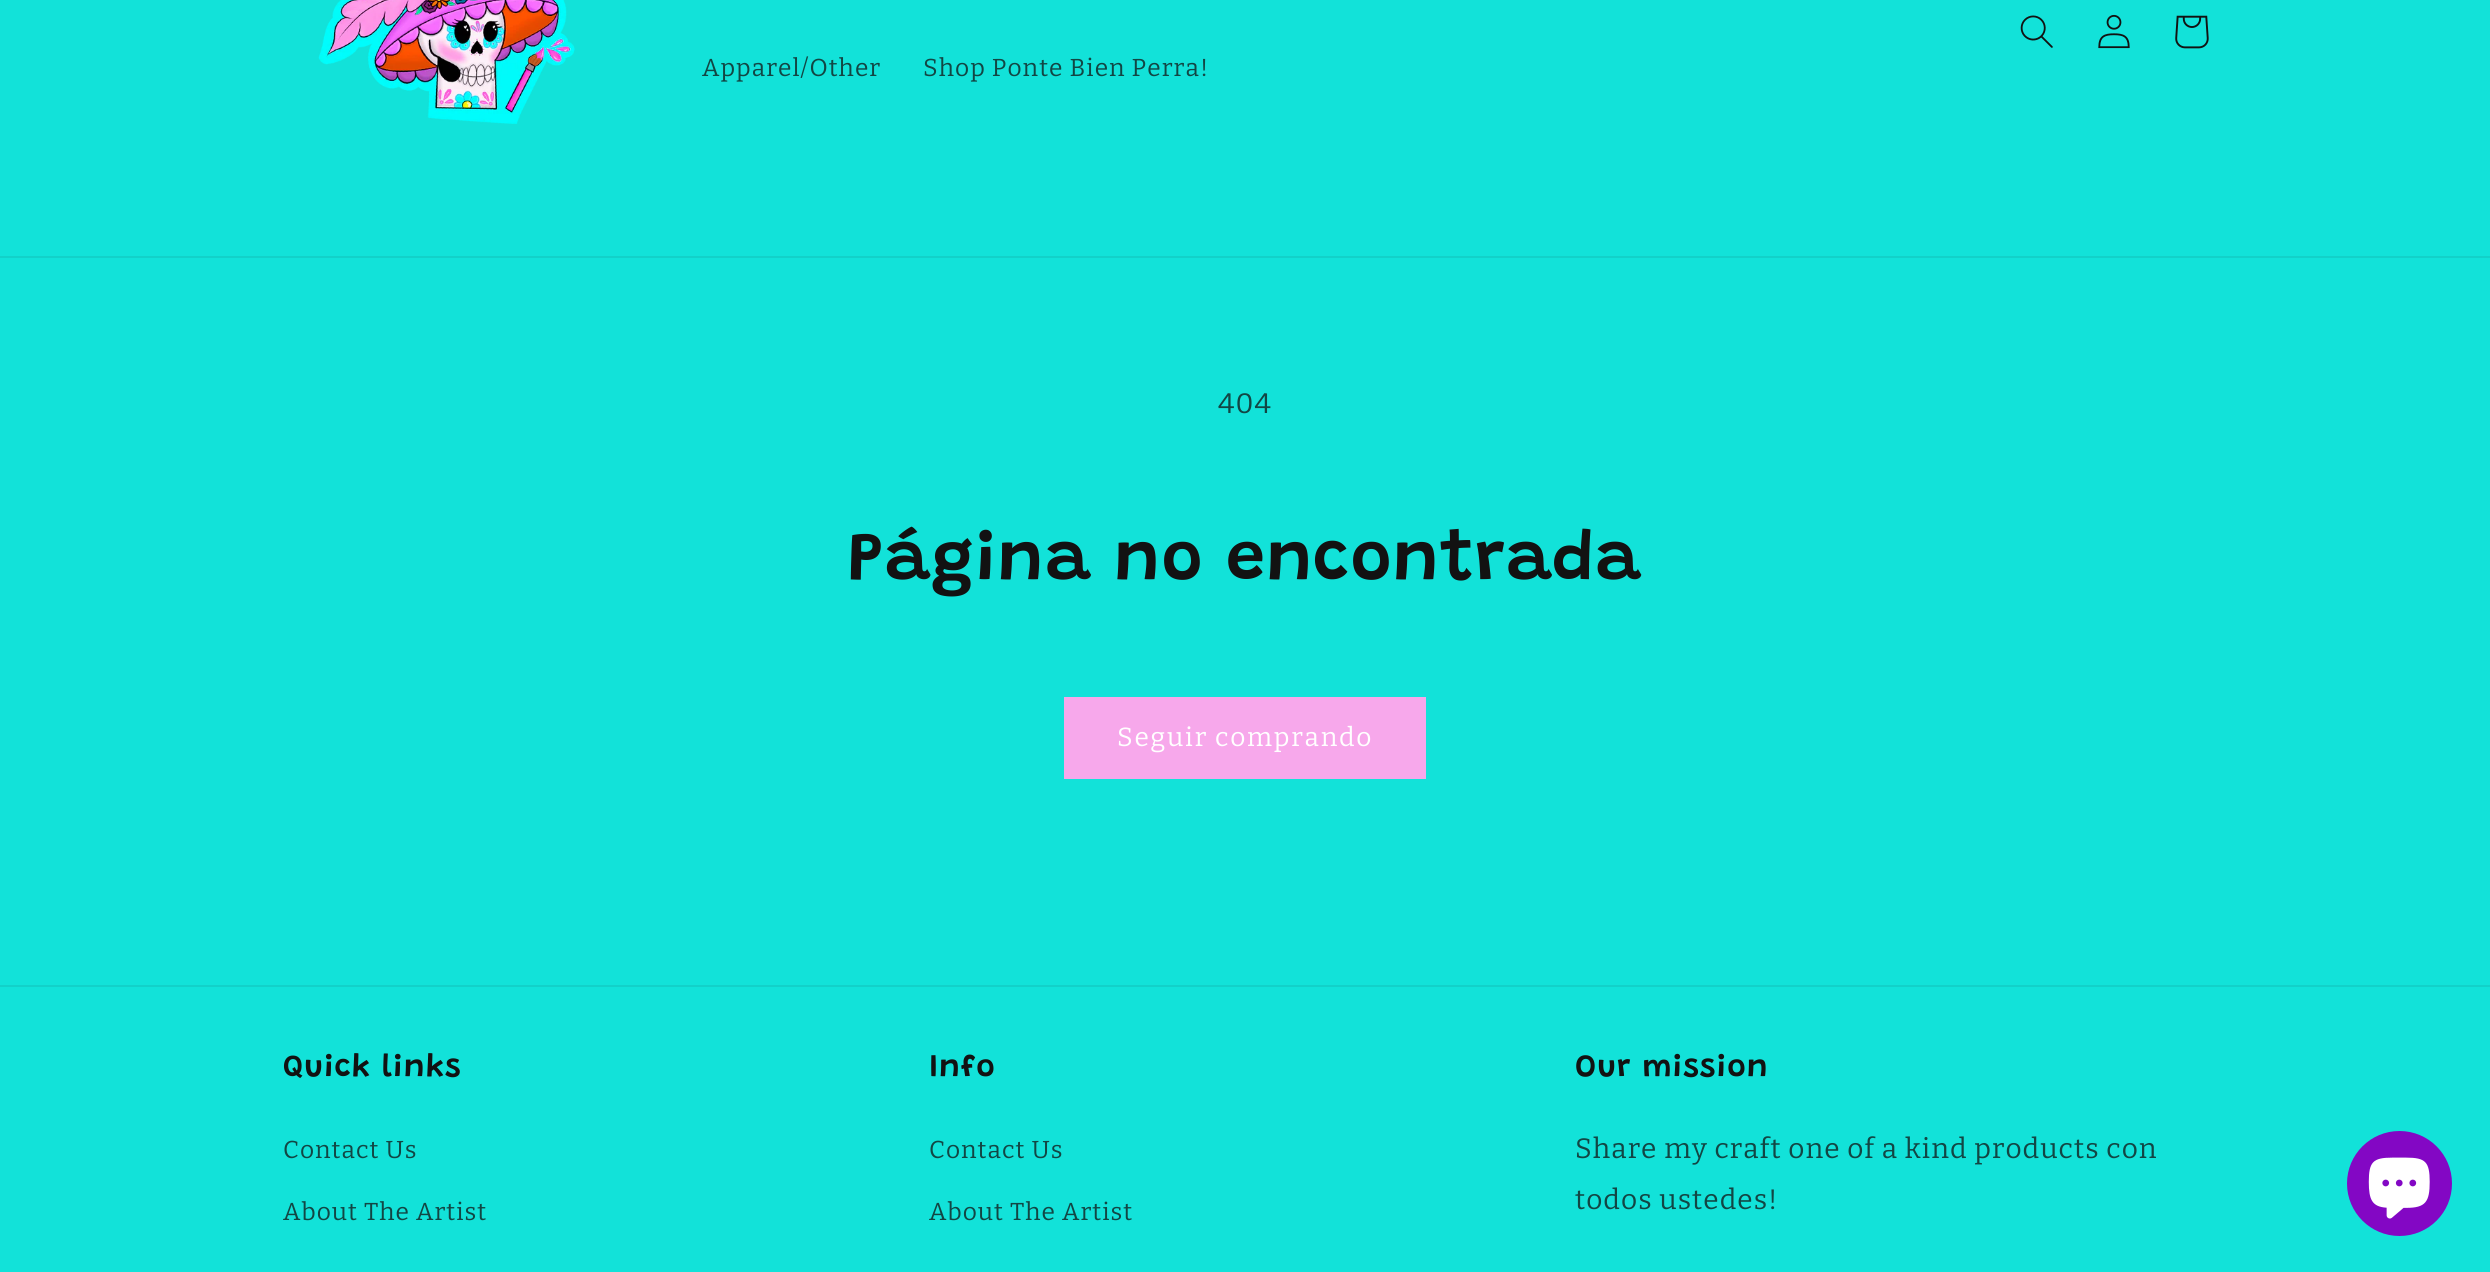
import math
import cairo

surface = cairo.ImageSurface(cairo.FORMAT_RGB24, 2490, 1272)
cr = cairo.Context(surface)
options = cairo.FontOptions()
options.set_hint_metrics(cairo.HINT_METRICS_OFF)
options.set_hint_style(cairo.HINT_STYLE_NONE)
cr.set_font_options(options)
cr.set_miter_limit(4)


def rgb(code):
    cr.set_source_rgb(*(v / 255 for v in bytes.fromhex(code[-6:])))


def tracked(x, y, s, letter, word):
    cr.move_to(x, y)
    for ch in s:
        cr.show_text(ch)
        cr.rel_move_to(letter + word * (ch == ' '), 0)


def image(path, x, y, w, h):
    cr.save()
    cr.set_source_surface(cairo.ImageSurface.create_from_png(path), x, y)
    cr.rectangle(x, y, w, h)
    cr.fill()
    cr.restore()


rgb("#12e2d9")
cr.paint()
rgb("#12d1c9")
cr.rectangle(0, 256, 2490, 2)
cr.fill()
image("img/1.png", 318, 0, 257, 124)
image("img/2.png", 2020, 15, 33, 33)
image("img/3.png", 2098, 14, 32, 35)
image("img/4.png", 2175, 15, 34, 34)
rgb("#f7a8eb")
cr.rectangle(1064, 697, 362, 82)
cr.fill()
rgb("#12d1c9")
cr.rectangle(0, 985, 2490, 2)
cr.fill()
rgb("#8307c4")
cr.arc(2399.5, 1183.5, 52.5, 0, 2 * math.pi)
cr.fill()
image("img/5.png", 2368, 1157, 62, 62)
cr.select_font_face("Bitter")
cr.set_font_size(24.5)
rgb("#124644")
tracked(702, 76, "Apparel/Other", 1.05, 0)
tracked(923, 76, "Shop Ponte Bien Perra!", 1.05, 0)
cr.set_font_size(28)
tracked(1218, 413, "404", 1.05, 0)
cr.select_font_face("Grandstander SemiBold")
cr.set_font_size(70)
rgb("#121212")
tracked(848, 579, "Página no encontrada", 1.05, 0)
cr.select_font_face("Bitter")
cr.set_font_size(26.25)
rgb("#ffffff")
tracked(1117, 746, "Seguir comprando", 1.75, 0)
cr.select_font_face("Grandstander SemiBold")
cr.set_font_size(31.5)
rgb("#121212")
tracked(283, 1076, "Quick links", 1.05, 0)
cr.select_font_face("Bitter")
cr.set_font_size(24.5)
rgb("#124644")
tracked(283, 1158, "Contact Us", 1.05, 0)
tracked(283, 1220, "About The Artist", 1.05, 0)
cr.select_font_face("Grandstander SemiBold")
cr.set_font_size(31.5)
rgb("#121212")
tracked(929, 1076, "Info", 1.05, 0)
cr.select_font_face("Bitter")
cr.set_font_size(24.5)
rgb("#124644")
tracked(929, 1158, "Contact Us", 1.05, 0)
tracked(929, 1220, "About The Artist", 1.05, 0)
cr.select_font_face("Grandstander SemiBold")
cr.set_font_size(31.5)
rgb("#121212")
tracked(1575, 1076, "Our mission", 1.05, 0)
cr.select_font_face("Bitter")
cr.set_font_size(28)
rgb("#124644")
tracked(1575, 1158, "Share my craft one of a kind products con", 1.05, 0)
tracked(1575, 1209, "todos ustedes!", 1.05, 0)
surface.write_to_png("page.png")
